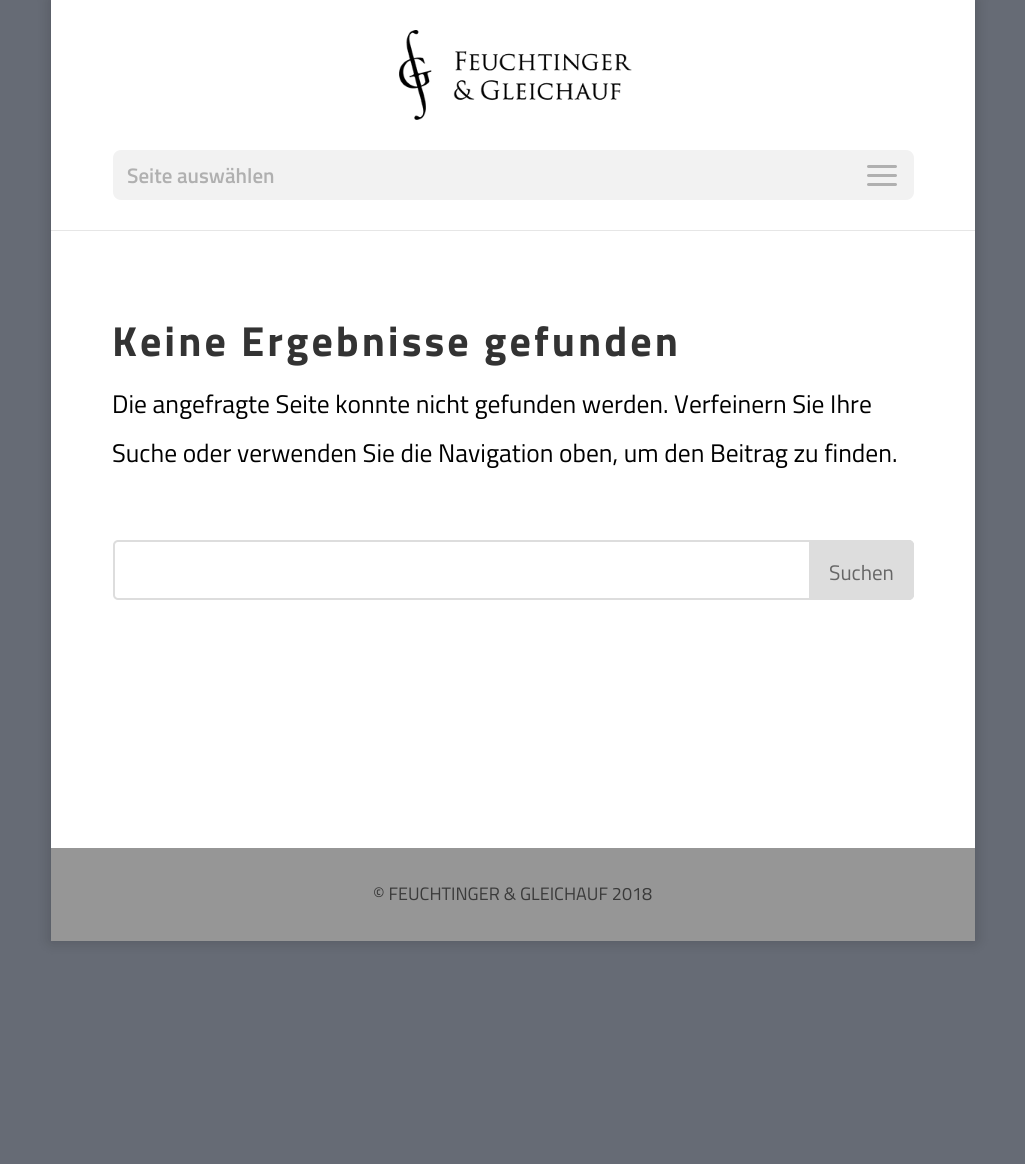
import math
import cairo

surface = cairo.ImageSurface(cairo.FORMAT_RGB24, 1025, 1164)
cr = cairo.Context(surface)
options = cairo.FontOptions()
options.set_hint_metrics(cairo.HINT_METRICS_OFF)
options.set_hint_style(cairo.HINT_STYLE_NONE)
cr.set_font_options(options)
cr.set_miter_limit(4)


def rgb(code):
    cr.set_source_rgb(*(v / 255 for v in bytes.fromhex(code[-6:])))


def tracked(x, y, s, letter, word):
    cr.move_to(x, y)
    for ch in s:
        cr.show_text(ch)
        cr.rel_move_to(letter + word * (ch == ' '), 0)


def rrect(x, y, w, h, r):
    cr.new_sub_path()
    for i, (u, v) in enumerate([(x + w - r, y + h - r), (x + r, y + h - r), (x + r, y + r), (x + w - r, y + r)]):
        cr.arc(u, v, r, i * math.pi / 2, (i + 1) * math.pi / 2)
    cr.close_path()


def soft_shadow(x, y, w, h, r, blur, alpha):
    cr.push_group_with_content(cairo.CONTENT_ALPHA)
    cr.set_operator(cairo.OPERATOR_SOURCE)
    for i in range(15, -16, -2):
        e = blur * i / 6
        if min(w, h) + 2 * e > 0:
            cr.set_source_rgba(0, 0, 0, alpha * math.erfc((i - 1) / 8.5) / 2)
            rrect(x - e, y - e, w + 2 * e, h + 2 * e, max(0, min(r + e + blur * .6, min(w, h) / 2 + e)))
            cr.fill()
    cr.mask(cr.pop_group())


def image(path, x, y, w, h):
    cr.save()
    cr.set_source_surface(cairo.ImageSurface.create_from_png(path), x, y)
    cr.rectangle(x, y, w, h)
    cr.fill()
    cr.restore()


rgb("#666b75")
cr.paint()
rgb("#000000")
soft_shadow(51, 0, 924, 941, 0, 7.5, 0.2)
rgb("#e6e6e6")
cr.rectangle(51, 230, 924, 1)
cr.fill()
rgb("#ffffff")
cr.rectangle(51, 0, 924, 230)
cr.fill()
image("img/1.png", 399, 30, 233, 90)
rgb("#f2f2f2")
rrect(113, 150, 801, 50, 8)
cr.fill()
image("img/2.png", 867, 165, 30, 21)
rgb("#ffffff")
cr.rectangle(51, 231, 924, 617)
cr.fill()
rrect(114, 541, 799, 58, 4)
rgb("#dddddd")
cr.stroke()
cr.new_path()
cr.move_to(810, 541)
cr.line_to(909, 541)
cr.curve_to(911, 541, 913, 543, 913, 545)
cr.line_to(913, 595)
cr.curve_to(913, 597, 911, 599, 909, 599)
cr.line_to(810, 599)
cr.close_path()
cr.fill_preserve()
cr.stroke()
rgb("#969696")
cr.rectangle(51, 848, 924, 93)
cr.fill()
cr.select_font_face("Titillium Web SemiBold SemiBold")
cr.set_font_size(21)
rgb("#b0b0b0")
cr.move_to(127, 183)
cr.show_text("Seite auswählen")
cr.select_font_face("Titillium Web", cairo.FONT_SLANT_NORMAL, cairo.FONT_WEIGHT_BOLD)
cr.set_font_size(42)
rgb("#333333")
tracked(112, 356, "Keine Ergebnisse gefunden", 3, 0)
cr.select_font_face("Titillium Web")
cr.set_font_size(25.5)
rgb("#000000")
cr.move_to(112, 413)
cr.show_text("Die angefragte Seite konnte nicht gefunden werden. Verfeinern Sie Ihre")
cr.move_to(112, 462)
cr.show_text("Suche oder verwenden Sie die Navigation oben, um den Beitrag zu finden.")
cr.set_font_size(21)
rgb("#666666")
cr.move_to(829, 580)
cr.show_text("Suchen")
cr.set_font_size(18)
rgb("#3a3a3a")
cr.move_to(373, 900)
cr.show_text("© FEUCHTINGER & GLEICHAUF 2018")
surface.write_to_png("page.png")
